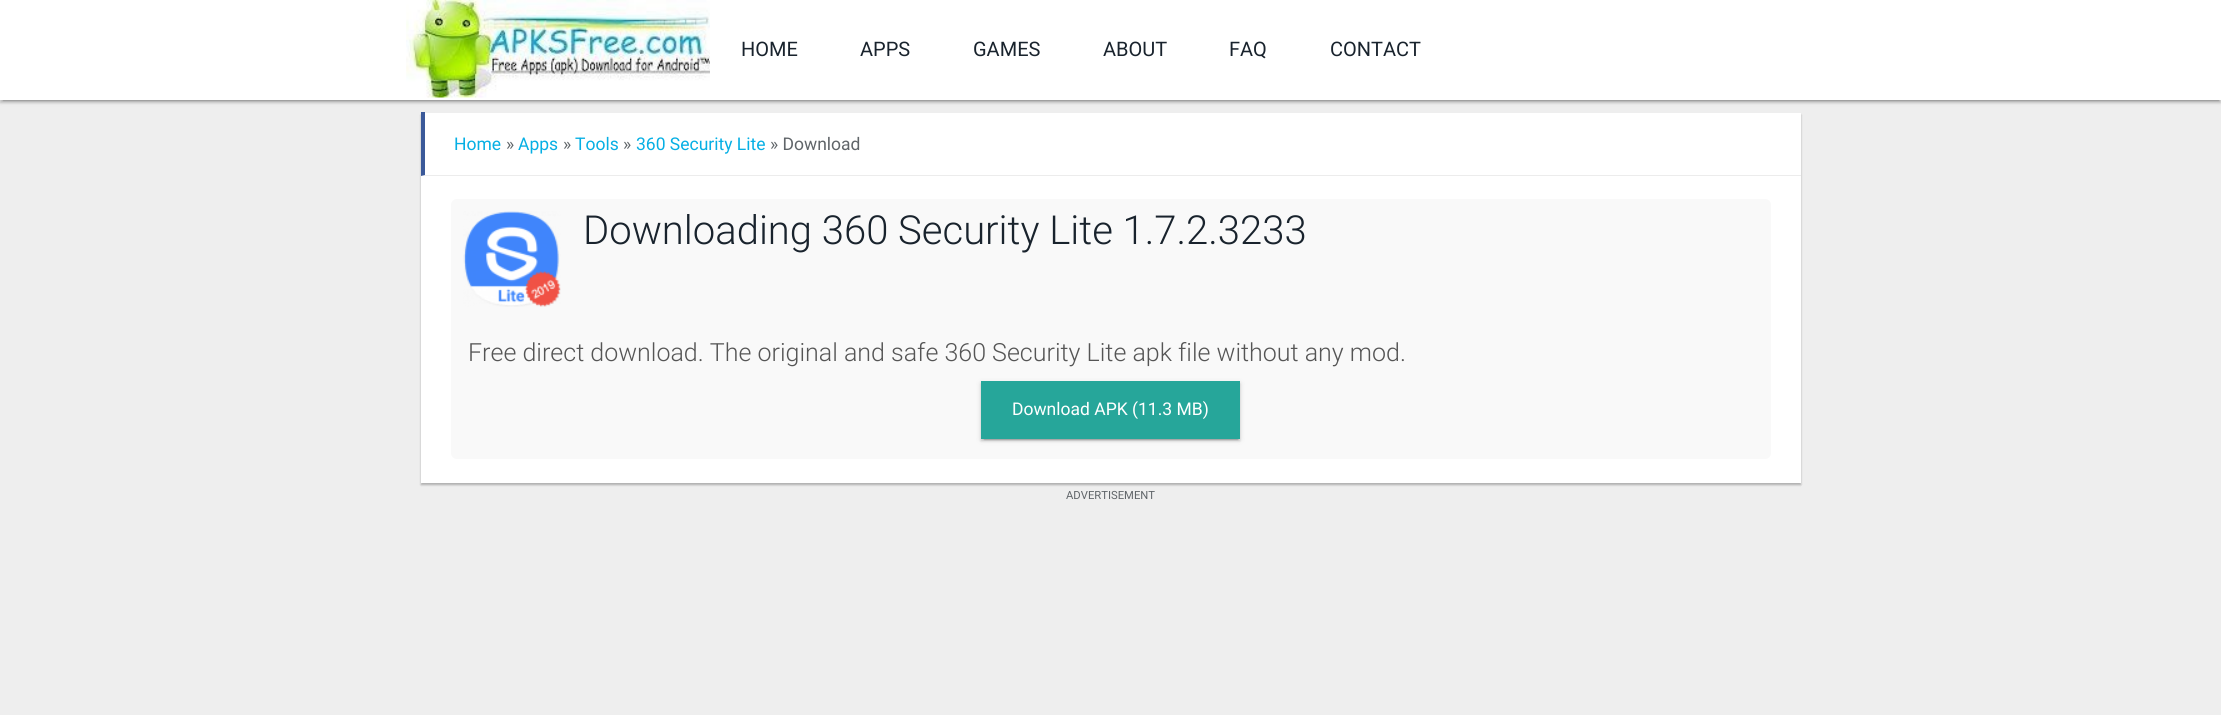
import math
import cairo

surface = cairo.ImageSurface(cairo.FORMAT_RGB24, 2221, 715)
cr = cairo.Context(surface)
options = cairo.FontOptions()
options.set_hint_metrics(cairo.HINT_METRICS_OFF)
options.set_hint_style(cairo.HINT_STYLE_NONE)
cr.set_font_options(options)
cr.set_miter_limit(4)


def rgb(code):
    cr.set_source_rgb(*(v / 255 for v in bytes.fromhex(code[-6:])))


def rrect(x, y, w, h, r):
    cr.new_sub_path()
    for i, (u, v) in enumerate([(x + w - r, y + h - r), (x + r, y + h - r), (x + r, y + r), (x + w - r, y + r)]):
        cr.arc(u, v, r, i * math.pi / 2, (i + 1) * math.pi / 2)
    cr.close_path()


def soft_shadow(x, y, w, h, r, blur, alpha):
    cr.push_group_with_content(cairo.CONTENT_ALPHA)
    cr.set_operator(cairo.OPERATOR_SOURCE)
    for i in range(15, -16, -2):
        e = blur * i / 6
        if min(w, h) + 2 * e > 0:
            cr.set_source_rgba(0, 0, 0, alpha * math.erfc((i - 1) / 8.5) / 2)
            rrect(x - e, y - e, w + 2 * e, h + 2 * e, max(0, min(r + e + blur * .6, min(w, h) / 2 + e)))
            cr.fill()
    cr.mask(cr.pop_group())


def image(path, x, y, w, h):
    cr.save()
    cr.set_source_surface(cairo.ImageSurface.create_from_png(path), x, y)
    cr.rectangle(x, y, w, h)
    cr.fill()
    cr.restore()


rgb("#eeeeee")
cr.paint()
rgb("#000000")
soft_shadow(3, 6, 2216, 95, 0, 0.5, 0.2)
soft_shadow(0, 1, 2221, 100, 0, 3, 0.12)
soft_shadow(0, 3, 2221, 100, 0, 1, 0.14)
rgb("#ffffff")
cr.rectangle(0, 0, 2221, 100)
cr.fill()
image("img/1.png", 406, 0, 304, 98)
rgb("#000000")
soft_shadow(421, 115, 1380, 370, 0, 1, 0.12)
soft_shadow(421, 115, 1380, 370, 0, 1, 0.16)
rgb("#ffffff")
cr.rectangle(421, 113, 1380, 370)
cr.fill()
rgb("#ececec")
cr.new_path()
cr.move_to(1801, 176)
cr.line_to(421, 176)
cr.line_to(425, 175)
cr.line_to(1801, 175)
cr.close_path()
cr.fill()
rgb("#3b5999")
cr.new_path()
cr.move_to(421, 176)
cr.line_to(421, 112)
cr.line_to(425, 112)
cr.line_to(425, 175)
cr.close_path()
cr.fill()
rgb("#f9f9f9")
rrect(451, 199, 1320, 260, 6)
cr.fill()
image("img/2.png", 463, 211, 98, 96)
rgb("#000000")
soft_shadow(984, 388, 254, 52, 0, 0.5, 0.2)
soft_shadow(981, 383, 259, 57, 0, 3, 0.12)
soft_shadow(981, 384, 259, 57, 0, 1, 0.14)
rgb("#26a69a")
cr.rectangle(981, 381, 259, 58)
cr.fill()
cr.select_font_face("Roboto")
cr.set_font_size(20)
rgb("#19232d")
for x, y, s in [
    (741, 56, "HOME"),
    (860, 56, "APPS"),
    (973, 56, "GAMES"),
    (1103, 56, "ABOUT"),
    (1229, 56, "FAQ"),
    (1330, 56, "CONTACT"),
]:
    cr.move_to(x, y)
    cr.show_text(s)
cr.set_font_size(17.5)
rgb("#06afe4")
cr.move_to(454, 150)
cr.show_text("Home")
rgb("#606569")
cr.move_to(506, 150)
cr.show_text("»")
rgb("#06afe4")
cr.move_to(518, 150)
cr.show_text("Apps")
rgb("#606569")
cr.move_to(563, 150)
cr.show_text("»")
rgb("#06afe4")
cr.move_to(575, 150)
cr.show_text("Tools")
rgb("#606569")
cr.move_to(623, 150)
cr.show_text("»")
rgb("#06afe4")
cr.move_to(636, 150)
cr.show_text("360 Security Lite")
rgb("#606569")
cr.move_to(770, 150)
cr.show_text("» Download")
cr.select_font_face("Roboto Light")
cr.set_font_size(40)
rgb("#19232d")
cr.move_to(583, 244)
cr.show_text("Downloading 360 Security Lite 1.7.2.3233")
cr.set_font_size(25)
rgb("#555555")
cr.move_to(468, 361)
cr.show_text("Free direct download. The original and safe 360 Security Lite apk file without any mod.")
cr.select_font_face("Roboto")
cr.set_font_size(17.5)
rgb("#ffffff")
cr.move_to(1012, 415)
cr.show_text("Download APK (11.3 MB)")
cr.set_font_size(11.25)
rgb("#606569")
cr.move_to(1066, 499)
cr.show_text("ADVERTISEMENT")
surface.write_to_png("page.png")
